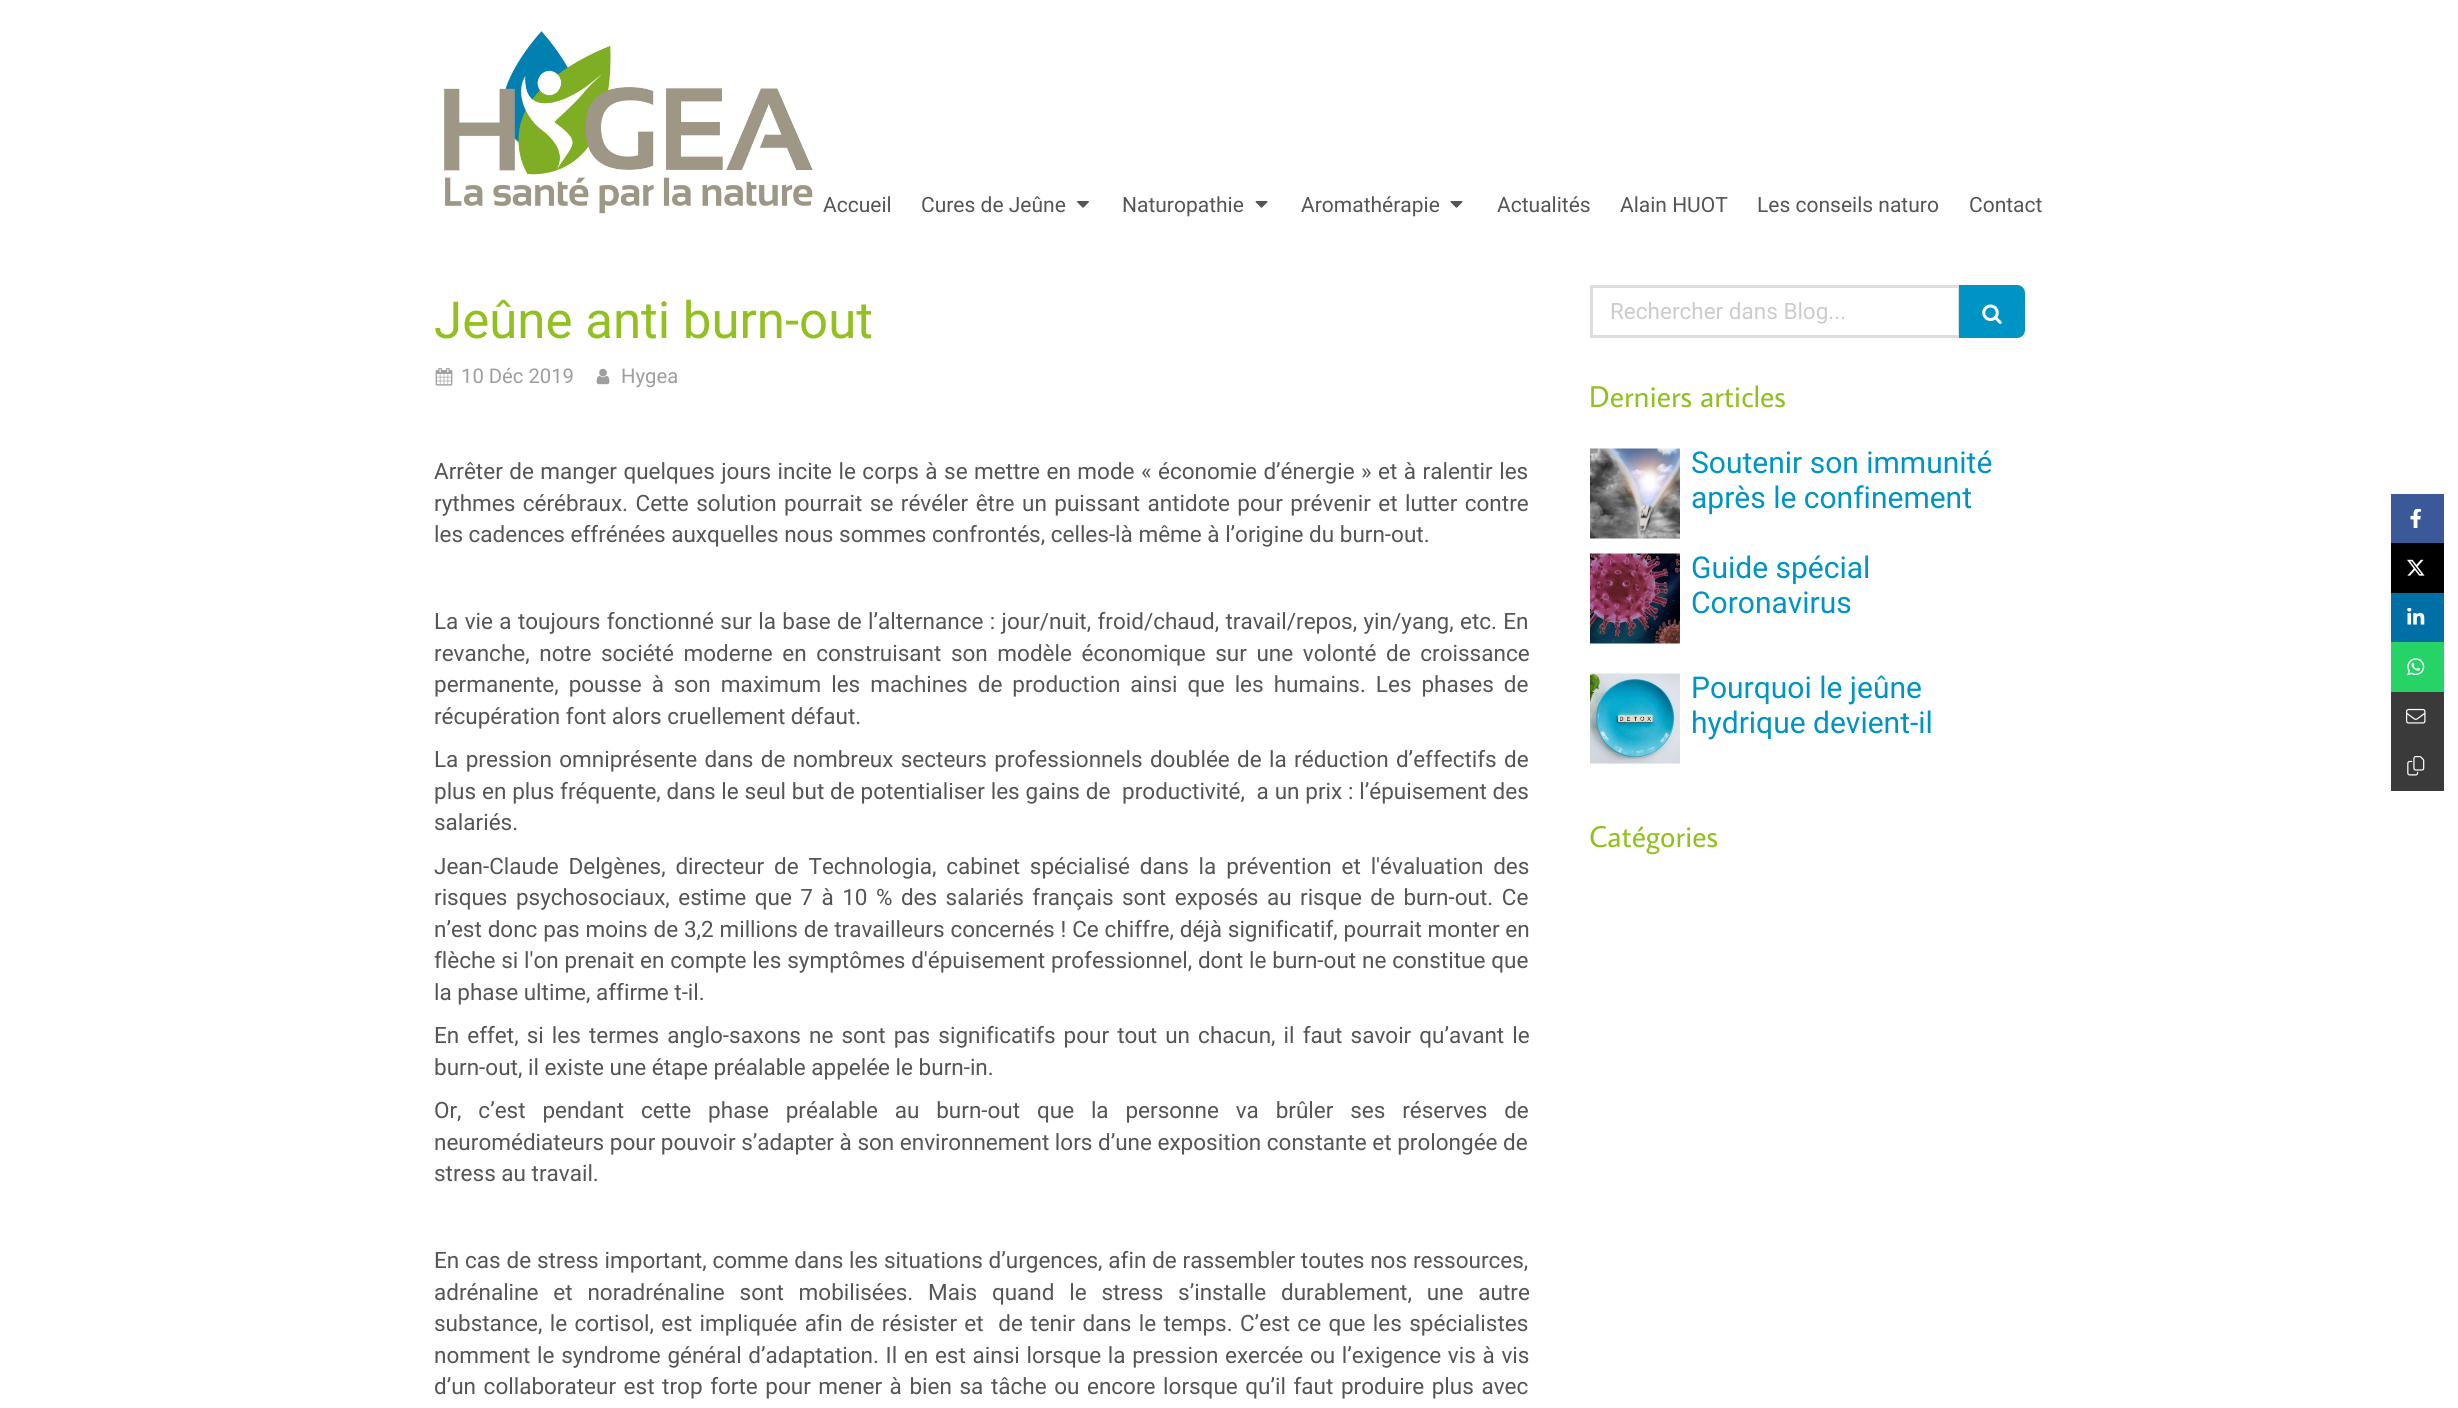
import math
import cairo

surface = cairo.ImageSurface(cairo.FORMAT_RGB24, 2458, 1408)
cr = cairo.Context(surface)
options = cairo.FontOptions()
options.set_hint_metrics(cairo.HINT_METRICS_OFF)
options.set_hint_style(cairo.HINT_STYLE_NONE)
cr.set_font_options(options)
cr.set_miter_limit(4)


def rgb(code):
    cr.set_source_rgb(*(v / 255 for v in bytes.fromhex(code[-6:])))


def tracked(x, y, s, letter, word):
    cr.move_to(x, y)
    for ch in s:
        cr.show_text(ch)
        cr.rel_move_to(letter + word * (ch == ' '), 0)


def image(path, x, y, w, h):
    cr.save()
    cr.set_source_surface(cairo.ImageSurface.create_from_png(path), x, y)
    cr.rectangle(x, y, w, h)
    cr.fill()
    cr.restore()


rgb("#ffffff")
cr.paint()
image("img/1.png", 444, 31, 369, 183)
image("img/2.png", 1077, 201, 12, 7)
image("img/3.png", 1255, 201, 13, 7)
image("img/3.png", 1450, 201, 13, 7)
image("img/4.png", 435, 368, 18, 18)
image("img/5.png", 596, 368, 14, 17)
rgb("#3b5998")
cr.rectangle(2391, 494, 53, 49)
cr.fill()
image("img/6.png", 2410, 509, 11, 19)
rgb("#000000")
cr.rectangle(2391, 543, 53, 50)
cr.fill()
image("img/7.png", 2407, 559, 18, 17)
rgb("#006fa6")
cr.rectangle(2391, 593, 53, 49)
cr.fill()
image("img/8.png", 2407, 608, 18, 17)
rgb("#25d366")
cr.rectangle(2391, 642, 53, 50)
cr.fill()
image("img/9.png", 2407, 658, 18, 18)
rgb("#3a3a3a")
cr.rectangle(2391, 692, 53, 99)
cr.fill()
image("img/10.png", 2406, 708, 20, 16)
image("img/11.png", 2407, 756, 18, 20)
cr.rectangle(1591.5, 286.5, 368, 50)
rgb("#dddddd")
cr.set_line_width(3)
cr.stroke()
rgb("#0094c4")
cr.new_path()
cr.move_to(1959, 285)
cr.line_to(2017, 285)
cr.curve_to(2021.5, 285, 2025, 288.5, 2025, 293)
cr.line_to(2025, 330)
cr.curve_to(2025, 334.5, 2021.5, 338, 2017, 338)
cr.line_to(1959, 338)
cr.close_path()
cr.fill()
image("img/12.png", 1982, 304, 20, 20)
rgb("#fafafa")
cr.rectangle(1590, 538, 90, 1)
cr.fill()
image("img/13.png", 1590, 448, 90, 91)
cr.rectangle(1590, 643, 90, 1)
cr.fill()
image("img/14.png", 1590, 553, 90, 91)
cr.rectangle(1590, 763, 90, 1)
cr.fill()
image("img/15.png", 1590, 673, 90, 91)
cr.select_font_face("Roboto")
cr.set_font_size(21)
rgb("#555555")
for x, y, s in [
    (823, 212, "Accueil"),
    (921, 212, "Cures de Jeûne"),
    (1122, 212, "Naturopathie"),
    (1301, 212, "Aromathérapie"),
    (1497, 212, "Actualités"),
    (1620, 212, "Alain HUOT"),
    (1757, 212, "Les conseils naturo"),
    (1969, 212, "Contact"),
]:
    cr.move_to(x, y)
    cr.show_text(s)
cr.set_font_size(51)
rgb("#92c020")
cr.move_to(434, 338)
cr.show_text("Jeûne anti burn-out")
cr.set_font_size(20.25)
rgb("#9e9e9e")
cr.move_to(461, 383)
cr.show_text("10 Déc 2019")
cr.move_to(621, 383)
cr.show_text("Hygea")
cr.set_font_size(22.5)
rgb("#555555")
tracked(434, 479, "Arrêter de manger quelques jours incite le corps à se mettre en mode « économie d’énergie » et à ralentir les", 0, 0.9)
tracked(434, 511, "rythmes cérébraux. Cette solution pourrait se révéler être un puissant antidote pour prévenir et lutter contre", 0, 1.9)
cr.move_to(434, 542)
cr.show_text("les cadences effrénées auxquelles nous sommes confrontés, celles-là même à l’origine du burn-out.")
tracked(434, 629, "La vie a toujours fonctionné sur la base de l’alternance : jour/nuit, froid/chaud, travail/repos, yin/yang, etc. En", 0, 0.75)
tracked(434, 661, "revanche, notre société moderne en construisant son modèle économique sur une volonté de croissance", 0, 4)
tracked(434, 692, "permanente, pousse à son maximum les machines de production ainsi que les humains. Les phases de", 0, 4.4)
cr.move_to(434, 724)
cr.show_text("récupération font alors cruellement défaut.")
tracked(434, 767, "La pression omniprésente dans de nombreux secteurs professionnels doublée de la réduction d’effectifs de", 0, 1.75)
tracked(434, 799, "plus en plus fréquente, dans le seul but de potentialiser les gains de  productivité,  a un prix : l’épuisement des", 0, 0.25)
cr.move_to(434, 830)
cr.show_text("salariés.")
tracked(434, 874, "Jean-Claude Delgènes, directeur de Technologia, cabinet spécialisé dans la prévention et l'évaluation des", 0, 4.25)
tracked(434, 905, "risques psychosociaux, estime que 7 à 10 % des salariés français sont exposés au risque de burn-out. Ce", 0, 2.9)
tracked(434, 937, "n’est donc pas moins de 3,2 millions de travailleurs concernés ! Ce chiffre, déjà significatif, pourrait monter en", 0, 0.25)
tracked(434, 968, "flèche si l'on prenait en compte les symptômes d'épuisement professionnel, dont le burn-out ne constitue que", 0, 0.25)
cr.move_to(434, 1000)
cr.show_text("la phase ultime, affirme t-il.")
tracked(434, 1043, "En effet, si les termes anglo-saxons ne sont pas significatifs pour tout un chacun, il faut savoir qu’avant le", 0, 2.5)
cr.move_to(434, 1075)
cr.show_text("burn-out, il existe une étape préalable appelée le burn-in.")
tracked(434, 1118, "Or, c’est pendant cette phase préalable au burn-out que la personne va brûler ses réserves de", 0, 11.25)
cr.move_to(434, 1150)
cr.show_text("neuromédiateurs pour pouvoir s’adapter à son environnement lors d’une exposition constante et prolongée de")
cr.move_to(434, 1181)
cr.show_text("stress au travail.")
tracked(434, 1268, "En cas de stress important, comme dans les situations d’urgences, afin de rassembler toutes nos ressources,", 0, 0.25)
tracked(434, 1300, "adrénaline et noradrénaline sont mobilisées. Mais quand le stress s’installe durablement, une autre", 0, 9.25)
tracked(434, 1331, "substance, le cortisol, est impliquée afin de résister et  de tenir dans le temps. C’est ce que les spécialistes", 0, 1.75)
tracked(434, 1363, "nomment le syndrome général d’adaptation. Il en est ainsi lorsque la pression exercée ou l’exigence vis à vis", 0, 1.1)
tracked(434, 1394, "d’un collaborateur est trop forte pour mener à bien sa tâche ou encore lorsque qu’il faut produire plus avec", 0, 2)
rgb("#cccccc")
cr.move_to(1610, 319)
cr.show_text("Rechercher dans Blog...")
cr.select_font_face("Average Sans")
cr.set_font_size(30)
rgb("#92c020")
cr.move_to(1589, 407)
cr.show_text("Derniers articles")
cr.select_font_face("Roboto")
rgb("#0094c4")
for x, y, s in [
    (1691, 473, "Soutenir son immunité"),
    (1691, 508, "après le confinement"),
    (1691, 578, "Guide spécial"),
    (1691, 613, "Coronavirus"),
    (1691, 698, "Pourquoi le jeûne"),
    (1691, 733, "hydrique devient-il"),
]:
    cr.move_to(x, y)
    cr.show_text(s)
cr.select_font_face("Average Sans")
rgb("#92c020")
cr.move_to(1589, 847)
cr.show_text("Catégories")
surface.write_to_png("page.png")
